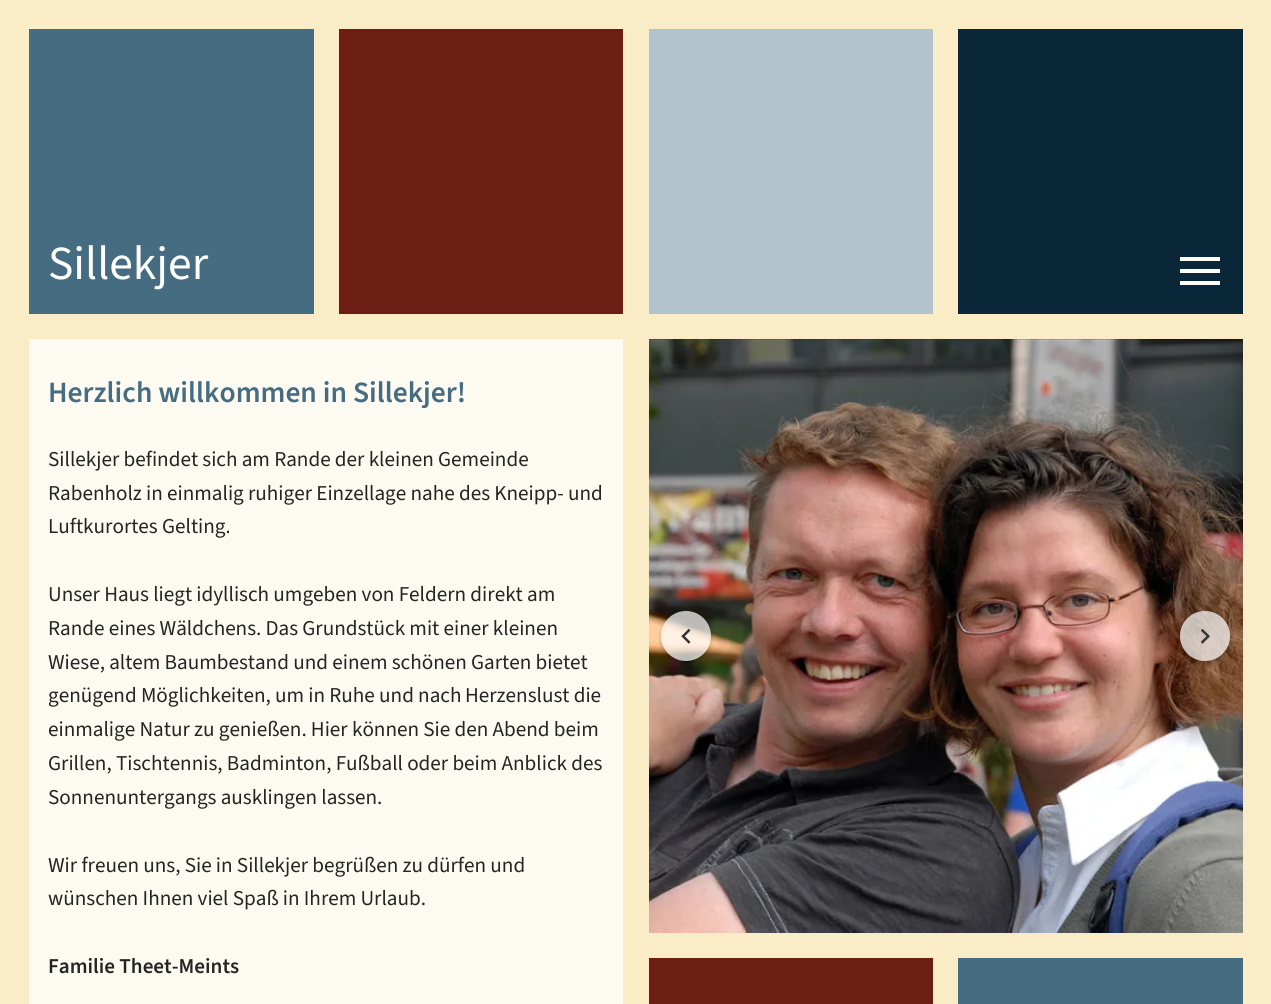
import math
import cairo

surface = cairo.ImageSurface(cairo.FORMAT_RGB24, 1271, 1004)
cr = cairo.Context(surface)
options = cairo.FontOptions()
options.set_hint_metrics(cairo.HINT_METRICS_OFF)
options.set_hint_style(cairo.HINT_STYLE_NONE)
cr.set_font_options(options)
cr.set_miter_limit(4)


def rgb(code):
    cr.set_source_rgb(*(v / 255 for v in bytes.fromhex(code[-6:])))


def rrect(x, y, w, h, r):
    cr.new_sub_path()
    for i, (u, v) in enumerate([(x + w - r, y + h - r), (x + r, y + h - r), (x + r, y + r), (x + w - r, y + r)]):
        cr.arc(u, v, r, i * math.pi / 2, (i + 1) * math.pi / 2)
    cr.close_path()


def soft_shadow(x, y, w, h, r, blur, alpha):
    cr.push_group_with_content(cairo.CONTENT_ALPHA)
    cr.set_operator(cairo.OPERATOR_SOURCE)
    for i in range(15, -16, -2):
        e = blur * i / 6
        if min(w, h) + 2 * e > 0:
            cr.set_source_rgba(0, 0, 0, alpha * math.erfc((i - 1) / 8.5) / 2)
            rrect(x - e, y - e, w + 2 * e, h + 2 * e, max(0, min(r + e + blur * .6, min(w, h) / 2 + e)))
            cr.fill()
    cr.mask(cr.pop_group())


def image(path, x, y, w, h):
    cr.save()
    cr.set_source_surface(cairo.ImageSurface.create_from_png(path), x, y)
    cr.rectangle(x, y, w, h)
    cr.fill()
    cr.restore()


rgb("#faecc7")
cr.paint()
for x, y, w, h, color in [
    (29, 29, 285, 285, "#466c81"),
    (339, 29, 284, 285, "#6c1d14"),
    (649, 29, 284, 285, "#b3c3cb"),
    (958, 29, 285, 285, "#092739"),
    (1180, 257, 40, 4, "#ffffff"),
    (1180, 269, 40, 4, "#ffffff"),
    (1180, 281, 40, 4, "#ffffff"),
    (29, 339, 594, 665, "#fdfbf1"),
]:
    rgb(color)
    cr.rectangle(x, y, w, h)
    cr.fill()
image("img/1.png", 649, 339, 594, 594)
cr.save()
cr.set_fill_rule(cairo.FILL_RULE_EVEN_ODD)
cr.new_path()
cr.move_to(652, 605)
cr.line_to(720, 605)
cr.line_to(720, 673)
cr.line_to(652, 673)
cr.close_path()
cr.move_to(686, 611)
cr.curve_to(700, 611, 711, 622, 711, 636)
cr.curve_to(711, 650, 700, 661, 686, 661)
cr.curve_to(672, 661, 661, 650, 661, 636)
cr.curve_to(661, 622, 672, 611, 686, 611)
cr.close_path()
cr.clip()
rgb("#000000")
soft_shadow(661, 614, 50, 50, 25, 2.5, 0.2)
cr.restore()
cr.set_source_rgba(1, 1, 1, 0.7)
cr.arc(686, 636, 25, 0, 2 * math.pi)
cr.fill()
image("img/2.png", 681, 628, 10, 16)
cr.save()
cr.set_fill_rule(cairo.FILL_RULE_EVEN_ODD)
cr.new_path()
cr.move_to(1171, 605)
cr.line_to(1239, 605)
cr.line_to(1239, 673)
cr.line_to(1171, 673)
cr.close_path()
cr.move_to(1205, 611)
cr.curve_to(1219, 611, 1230, 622, 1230, 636)
cr.curve_to(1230, 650, 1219, 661, 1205, 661)
cr.curve_to(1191, 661, 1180, 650, 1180, 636)
cr.curve_to(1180, 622, 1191, 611, 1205, 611)
cr.close_path()
cr.clip()
rgb("#000000")
soft_shadow(1180, 614, 50, 50, 25, 2.5, 0.2)
cr.restore()
cr.arc(1205, 636, 25, 0, 2 * math.pi)
cr.fill()
image("img/3.png", 1200, 628, 10, 16)
rgb("#6c1d14")
cr.rectangle(649, 958, 284, 46)
cr.fill()
rgb("#466c81")
cr.rectangle(958, 958, 285, 46)
cr.fill()
cr.select_font_face("Source Sans 3")
cr.set_font_size(47.5)
rgb("#ffffff")
cr.move_to(48, 279)
cr.show_text("Sillekjer")
cr.select_font_face("Source Sans 3 SemiBold")
cr.set_font_size(29.5)
rgb("#466c81")
cr.move_to(48, 402)
cr.show_text("Herzlich willkommen in Sillekjer!")
cr.select_font_face("Source Sans 3")
cr.set_font_size(21.15)
rgb("#252524")
for x, y, s in [
    (48, 466, "Sillekjer befindet sich am Rande der kleinen Gemeinde"),
    (48, 500, "Rabenholz in einmalig ruhiger Einzellage nahe des Kneipp- und"),
    (48, 533, "Luftkurortes Gelting."),
    (48, 601, "Unser Haus liegt idyllisch umgeben von Feldern direkt am"),
    (48, 635, "Rande eines Wäldchens. Das Grundstück mit einer kleinen"),
    (48, 669, "Wiese, altem Baumbestand und einem schönen Garten bietet"),
    (48, 702, "genügend Möglichkeiten, um in Ruhe und nach"),
    (465, 702, "Herzenslust die"),
    (48, 736, "einmalige Natur zu genießen. Hier können Sie den Abend beim"),
    (48, 770, "Grillen, Tischtennis, Badminton, Fußball oder beim Anblick des"),
    (48, 804, "Sonnenuntergangs ausklingen lassen."),
    (48, 872, "Wir freuen uns, Sie in Sillekjer begrüßen zu dürfen und"),
    (48, 905, "wünschen Ihnen viel Spaß in Ihrem Urlaub."),
]:
    cr.move_to(x, y)
    cr.show_text(s)
cr.select_font_face("Source Sans 3 SemiBold")
cr.move_to(48, 973)
cr.show_text("Familie Theet-Meints")
surface.write_to_png("page.png")
